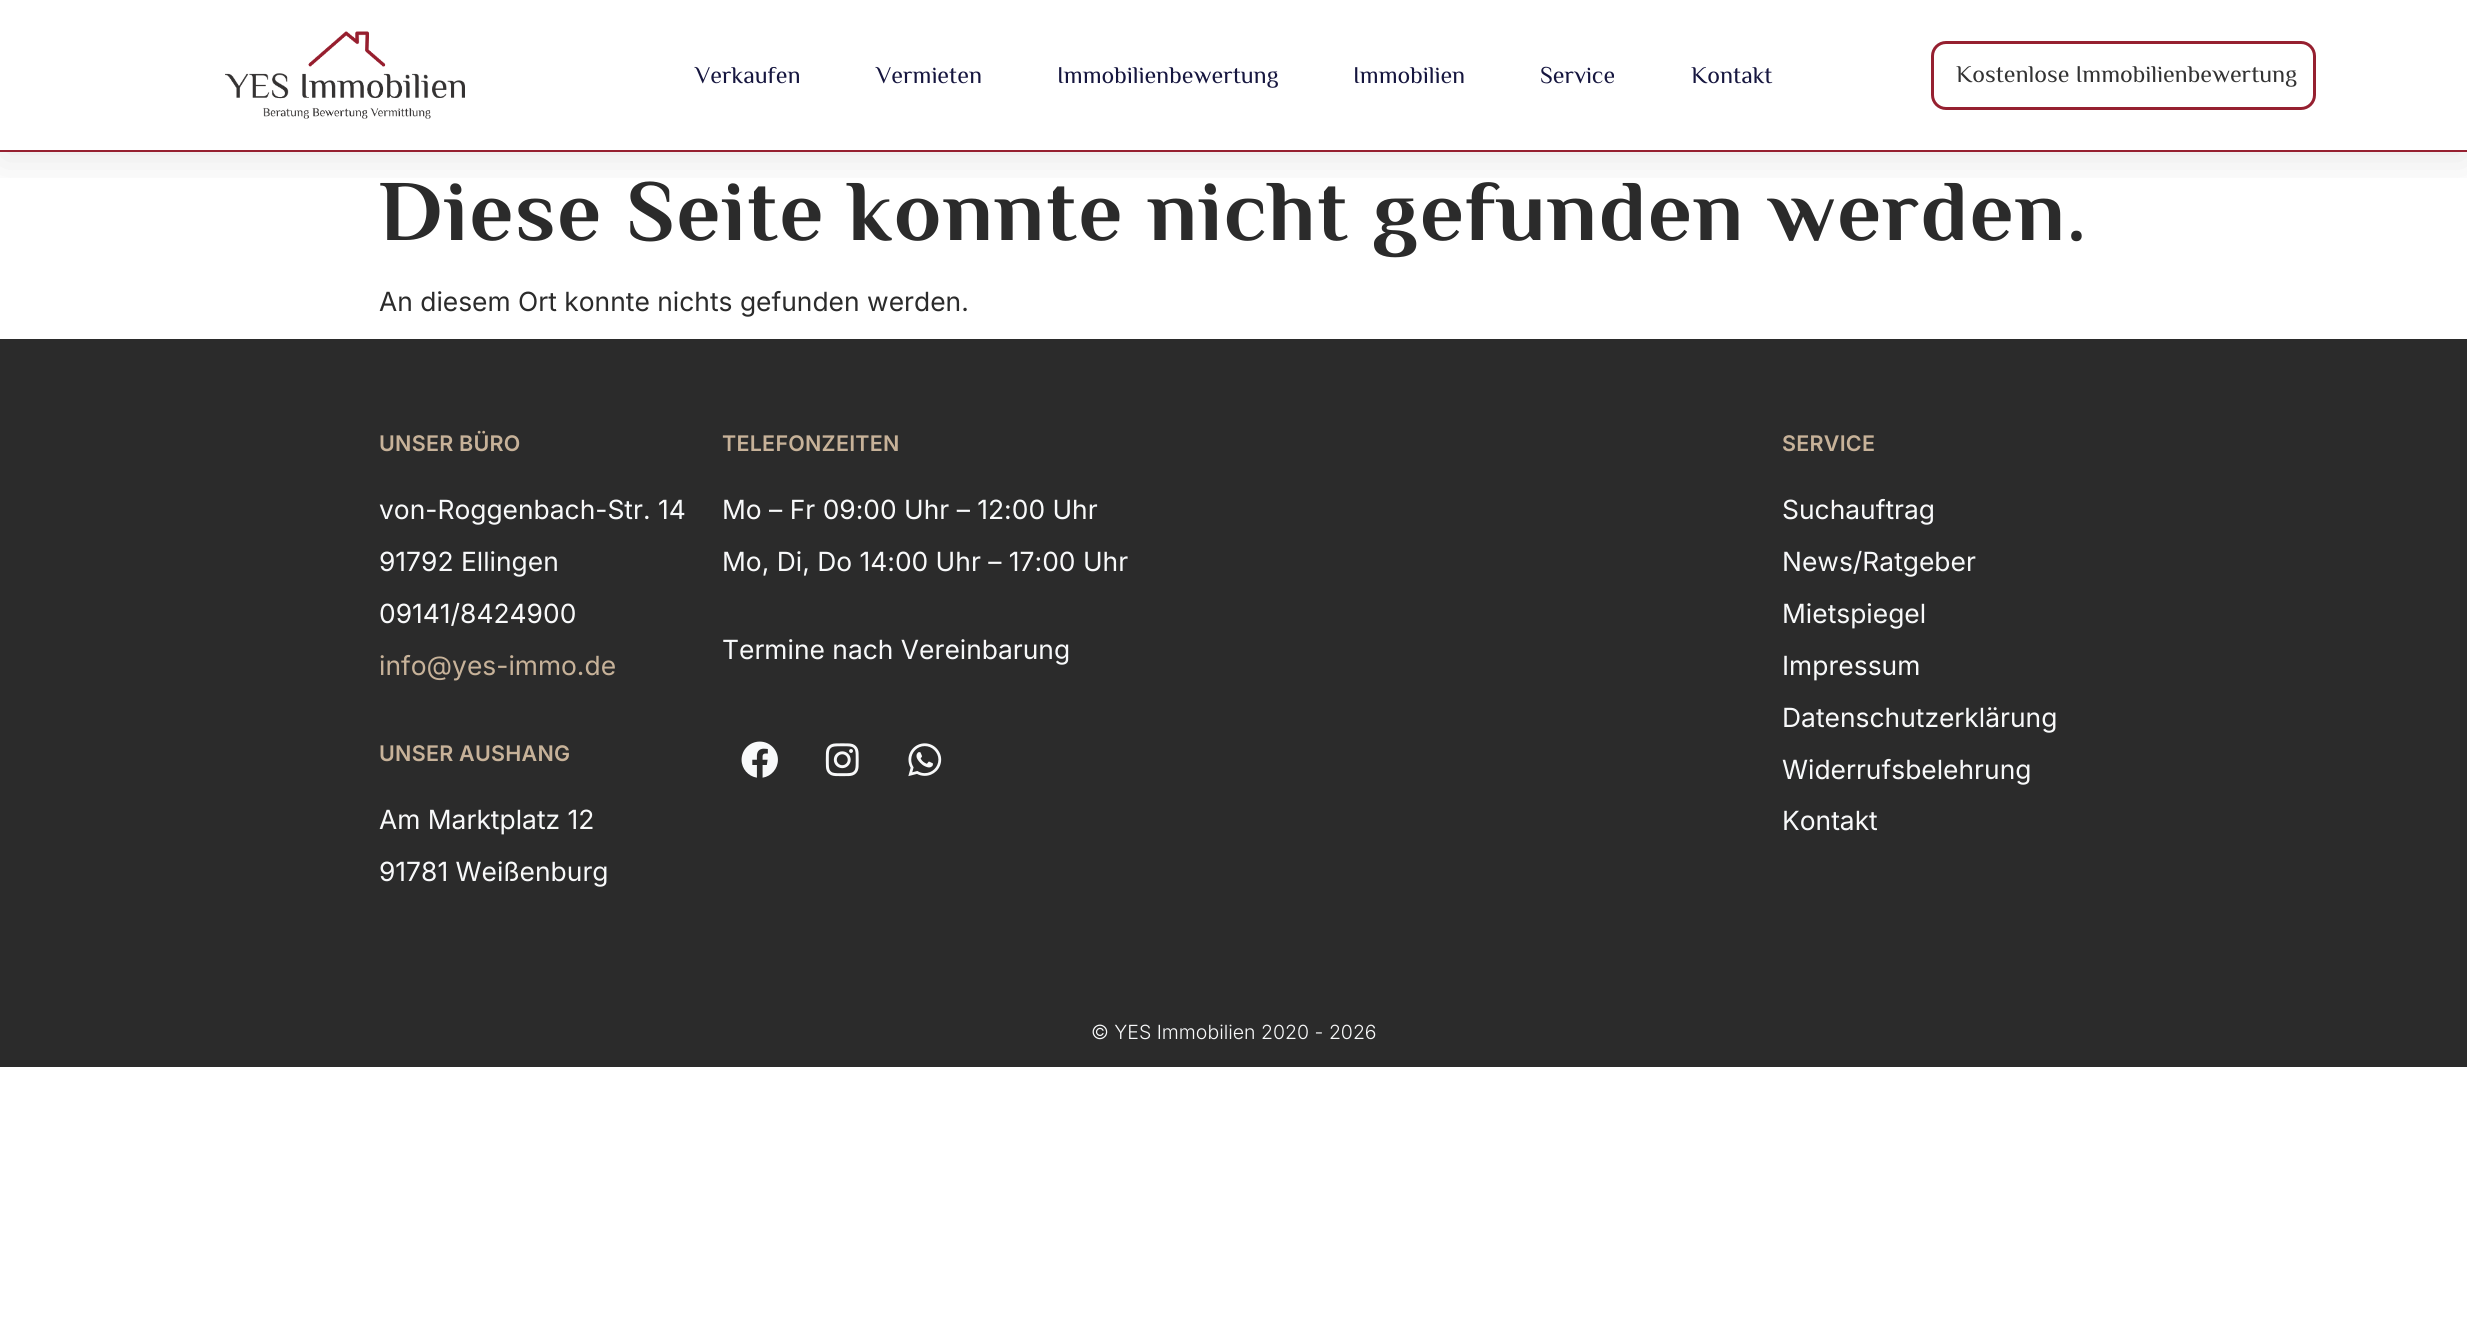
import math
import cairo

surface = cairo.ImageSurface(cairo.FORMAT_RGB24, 2467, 1334)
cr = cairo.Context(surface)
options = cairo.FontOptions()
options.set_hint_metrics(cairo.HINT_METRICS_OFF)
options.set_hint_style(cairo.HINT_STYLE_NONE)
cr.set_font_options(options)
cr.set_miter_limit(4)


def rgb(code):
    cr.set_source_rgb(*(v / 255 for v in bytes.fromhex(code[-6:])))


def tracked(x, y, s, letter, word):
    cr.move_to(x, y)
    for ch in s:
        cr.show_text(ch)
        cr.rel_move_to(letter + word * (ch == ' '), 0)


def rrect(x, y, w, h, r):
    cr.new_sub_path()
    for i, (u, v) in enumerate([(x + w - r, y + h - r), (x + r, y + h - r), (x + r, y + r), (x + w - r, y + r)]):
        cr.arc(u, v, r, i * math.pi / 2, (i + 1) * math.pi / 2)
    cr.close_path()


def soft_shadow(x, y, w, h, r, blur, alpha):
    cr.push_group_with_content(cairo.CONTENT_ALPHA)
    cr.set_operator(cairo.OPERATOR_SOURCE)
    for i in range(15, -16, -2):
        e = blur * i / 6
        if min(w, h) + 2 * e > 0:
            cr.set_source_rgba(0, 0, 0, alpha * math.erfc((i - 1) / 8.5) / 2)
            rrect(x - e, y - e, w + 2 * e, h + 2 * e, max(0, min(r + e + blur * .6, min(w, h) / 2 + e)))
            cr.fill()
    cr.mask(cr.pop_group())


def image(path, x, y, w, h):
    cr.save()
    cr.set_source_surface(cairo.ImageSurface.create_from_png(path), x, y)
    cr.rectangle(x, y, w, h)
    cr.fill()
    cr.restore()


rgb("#ffffff")
cr.paint()
cr.save()
cr.rectangle(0, 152, 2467, 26)
cr.clip()
rgb("#000000")
soft_shadow(0, 8, 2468, 151, 0, 22.5, 0.1)
cr.restore()
rgb("#962030")
cr.rectangle(0, 150, 2467, 2)
cr.fill()
image("img/1.png", 225, 31, 240, 88)
rrect(1932.5, 42.5, 382, 66, 13.5)
cr.set_line_width(3)
cr.stroke()
rgb("#2b2b2b")
cr.rectangle(0, 339, 2467, 728)
cr.fill()
image("img/2.png", 741, 741, 37, 37)
image("img/3.png", 825, 743, 34, 34)
image("img/4.png", 908, 743, 34, 34)
cr.select_font_face("Philosopher")
cr.set_font_size(24)
rgb("#16163f")
for x, y, s in [
    (695, 83, "Verkaufen"),
    (876, 83, "Vermieten"),
    (1057, 83, "Immobilienbewertung"),
    (1353, 83, "Immobilien"),
    (1540, 83, "Service"),
    (1691, 83, "Kontakt"),
]:
    cr.move_to(x, y)
    cr.show_text(s)
rgb("#333333")
cr.move_to(1956, 82)
cr.show_text("Kostenlose Immobilienbewertung")
cr.select_font_face("Philosopher", cairo.FONT_SLANT_NORMAL, cairo.FONT_WEIGHT_BOLD)
cr.set_font_size(86.4)
rgb("#2b2b2b")
tracked(379, 240, "Diese Seite konnte nicht gefunden werden.", 1.75, 0)
cr.select_font_face("Inter")
cr.set_font_size(26.4)
cr.move_to(379, 311)
cr.show_text("An diesem Ort konnte nichts gefunden werden.")
cr.select_font_face("Inter SemiBold")
cr.set_font_size(21.5)
rgb("#c7b299")
tracked(379, 451, "UNSER BÜRO", 0.25, 0)
cr.select_font_face("Inter")
cr.set_font_size(26.4)
rgb("#f8f9fa")
for x, y, s in [
    (379, 519, "von-Roggenbach-Str. 14"),
    (379, 571, "91792 Ellingen"),
    (379, 623, "09141/8424900"),
]:
    cr.move_to(x, y)
    cr.show_text(s)
rgb("#c7b299")
cr.move_to(379, 675)
cr.show_text("info@yes-immo.de")
cr.select_font_face("Inter SemiBold")
cr.set_font_size(21.5)
tracked(379, 761, "UNSER AUSHANG", 0.25, 0)
cr.select_font_face("Inter")
cr.set_font_size(26.4)
rgb("#f8f9fa")
cr.move_to(379, 829)
cr.show_text("Am Marktplatz 12")
cr.move_to(379, 881)
cr.show_text("91781 Weißenburg")
cr.select_font_face("Inter SemiBold")
cr.set_font_size(21.5)
rgb("#c7b299")
tracked(722, 451, "TELEFONZEITEN", 0.25, 0)
cr.select_font_face("Inter")
cr.set_font_size(26.4)
rgb("#f8f9fa")
for x, y, s in [
    (722, 519, "Mo – Fr 09:00 Uhr – 12:00 Uhr"),
    (722, 571, "Mo, Di, Do 14:00 Uhr – 17:00 Uhr"),
    (722, 659, "Termine nach Vereinbarung"),
]:
    cr.move_to(x, y)
    cr.show_text(s)
cr.select_font_face("Inter SemiBold")
cr.set_font_size(21.5)
rgb("#c7b299")
tracked(1782, 451, "SERVICE", 0.25, 0)
cr.select_font_face("Inter")
cr.set_font_size(26.4)
rgb("#f8f9fa")
for x, y, s in [
    (1782, 519, "Suchauftrag"),
    (1782, 571, "News/Ratgeber"),
    (1782, 623, "Mietspiegel"),
    (1782, 675, "Impressum"),
    (1782, 727, "Datenschutzerklärung"),
    (1782, 779, "Widerrufsbelehrung"),
    (1782, 830, "Kontakt"),
]:
    cr.move_to(x, y)
    cr.show_text(s)
cr.select_font_face("Inter Light")
cr.set_font_size(19.5)
cr.move_to(1091, 1039)
cr.show_text("© YES Immobilien 2020 - 2026")
surface.write_to_png("page.png")
